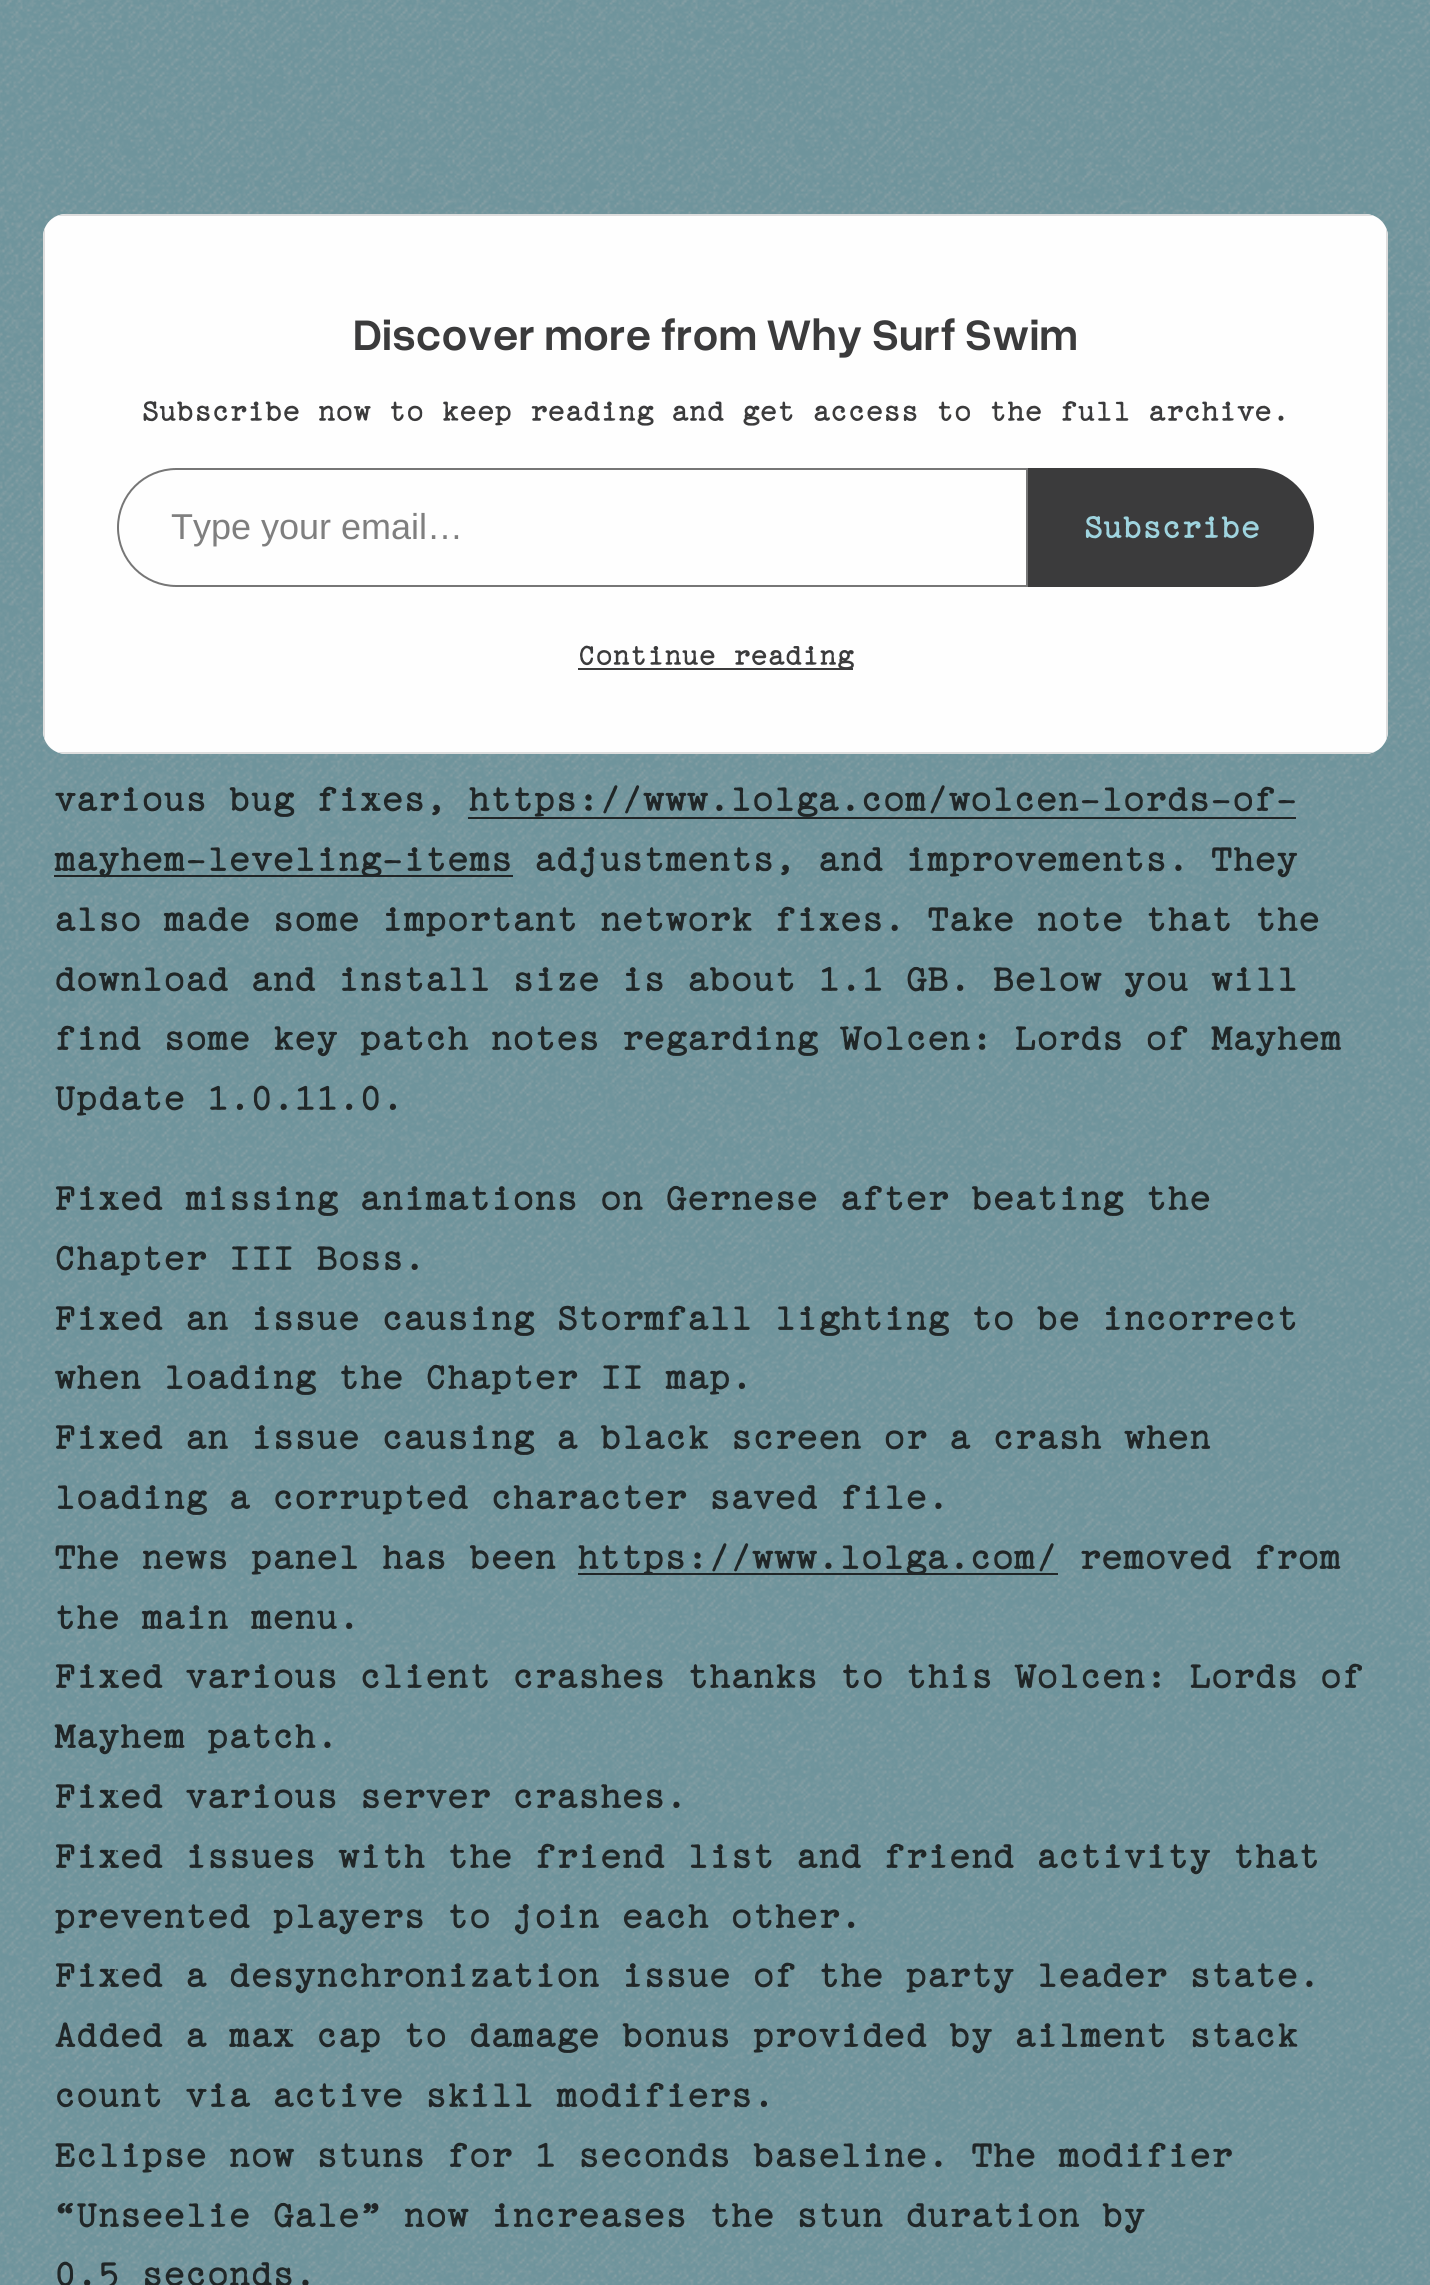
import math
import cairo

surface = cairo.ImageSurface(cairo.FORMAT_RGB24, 1430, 2285)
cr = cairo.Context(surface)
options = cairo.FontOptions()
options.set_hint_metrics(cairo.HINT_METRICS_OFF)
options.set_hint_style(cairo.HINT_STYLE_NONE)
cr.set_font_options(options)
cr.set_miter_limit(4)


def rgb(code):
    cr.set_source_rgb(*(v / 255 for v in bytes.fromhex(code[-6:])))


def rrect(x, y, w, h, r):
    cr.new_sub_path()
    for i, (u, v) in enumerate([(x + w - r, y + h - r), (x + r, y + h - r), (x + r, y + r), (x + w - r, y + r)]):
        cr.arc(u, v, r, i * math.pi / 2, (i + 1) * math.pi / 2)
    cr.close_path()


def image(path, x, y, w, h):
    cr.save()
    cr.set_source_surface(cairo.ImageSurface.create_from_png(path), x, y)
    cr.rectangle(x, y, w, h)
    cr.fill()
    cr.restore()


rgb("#6f949c")
cr.paint()
image("img/1.png", 0, 0, 1430, 2285)
rgb("#fefefe")
rrect(43, 214, 1345, 540, 23)
cr.fill()
rgb("#dddddd")
cr.set_fill_rule(cairo.FILL_RULE_EVEN_ODD)
cr.new_path()
cr.move_to(43, 237)
cr.line_to(43, 731)
cr.curve_to(43, 734, 44, 738, 45, 740)
cr.line_to(45, 228)
cr.curve_to(44, 230, 43, 234, 43, 237)
cr.close_path()
cr.move_to(66, 214)
cr.curve_to(63, 214, 59, 215, 57, 216)
cr.line_to(1374, 216)
cr.curve_to(1372, 215, 1368, 214, 1365, 214)
cr.close_path()
cr.move_to(1388, 237)
cr.curve_to(1388, 234, 1387, 230, 1386, 228)
cr.line_to(1386, 740)
cr.curve_to(1387, 738, 1388, 734, 1388, 731)
cr.close_path()
cr.move_to(1365, 754)
cr.curve_to(1368, 754, 1372, 753, 1374, 752)
cr.line_to(57, 752)
cr.curve_to(59, 753, 63, 754, 66, 754)
cr.close_path()
cr.fill()
cr.new_path()
cr.move_to(176.5, 469)
cr.line_to(1027, 469)
cr.line_to(1027, 586)
cr.line_to(176.5, 586)
cr.curve_to(144, 586, 118, 560, 118, 527.5)
cr.curve_to(118, 495, 144, 469, 176.5, 469)
cr.close_path()
rgb("#767676")
cr.stroke()
rgb("#3b3b3c")
cr.new_path()
cr.move_to(1028, 468)
cr.line_to(1254.5, 468)
cr.curve_to(1287.5, 468, 1314, 494.5, 1314, 527.5)
cr.curve_to(1314, 560.5, 1287.5, 587, 1254.5, 587)
cr.line_to(1028, 587)
cr.close_path()
cr.fill()
cr.rectangle(578, 668, 275, 2)
cr.fill()
cr.set_source_rgba(0.071, 0.071, 0.071, 0.85)
cr.rectangle(468, 817, 828, 2)
cr.fill()
cr.rectangle(54, 875, 459, 2)
cr.fill()
cr.rectangle(578, 1573, 480, 2)
cr.fill()
cr.select_font_face("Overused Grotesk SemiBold")
cr.set_font_size(45.25)
rgb("#3b3b3c")
cr.move_to(353, 350)
cr.show_text("Discover more from Why Surf Swim")
cr.select_font_face("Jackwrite")
cr.set_font_size(32.3)
cr.move_to(141, 420)
cr.show_text("Subscribe now to keep reading and get access to the full archive.")
cr.select_font_face("Liberation Sans")
cr.set_font_size(36)
rgb("#7f7f7f")
cr.move_to(171, 539)
cr.show_text("Type your email…")
cr.select_font_face("Jackwrite")
rgb("#9fd4df")
cr.move_to(1083, 537)
cr.show_text("Subscribe")
cr.set_font_size(31.5)
rgb("#3b3b3c")
cr.move_to(578, 664)
cr.show_text("Continue reading")
cr.set_font_size(39.9)
rgb("#202627")
for x, y, s in [
    (54, 810, "various bug fixes,"),
    (468, 810, "https://www.lolga.com/wolcen-lords-of-"),
    (54, 870, "mayhem-leveling-items"),
    (534, 870, "adjustments, and improvements. They"),
    (54, 930, "also made some important network fixes. Take note that the"),
    (54, 990, "download and install size is about 1.1 GB. Below you will"),
    (54, 1049, "find some key patch notes regarding Wolcen: Lords of Mayhem"),
    (54, 1109, "Update 1.0.11.0."),
    (54, 1209, "Fixed missing animations on Gernese after beating the"),
    (54, 1269, "Chapter III Boss."),
    (54, 1329, "Fixed an issue causing Stormfall lighting to be incorrect"),
    (54, 1388, "when loading the Chapter II map."),
    (54, 1448, "Fixed an issue causing a black screen or a crash when"),
    (54, 1508, "loading a corrupted character saved file."),
    (54, 1568, "The news panel has been"),
    (577, 1568, "https://www.lolga.com/"),
    (1079, 1568, "removed from"),
    (54, 1628, "the main menu."),
    (54, 1687, "Fixed various client crashes thanks to this Wolcen: Lords of"),
    (54, 1747, "Mayhem patch."),
    (54, 1807, "Fixed various server crashes."),
    (54, 1867, "Fixed issues with the friend list and friend activity that"),
    (54, 1927, "prevented players to join each other."),
    (54, 1986, "Fixed a desynchronization issue of the party leader state."),
    (54, 2046, "Added a max cap to damage bonus provided by ailment stack"),
    (54, 2106, "count via active skill modifiers."),
    (54, 2166, "Eclipse now stuns for 1 seconds baseline. The modifier"),
    (54, 2226, "“Unseelie Gale” now increases the stun duration by"),
    (54, 2285, "0.5 seconds."),
]:
    cr.move_to(x, y)
    cr.show_text(s)
surface.write_to_png("page.png")
